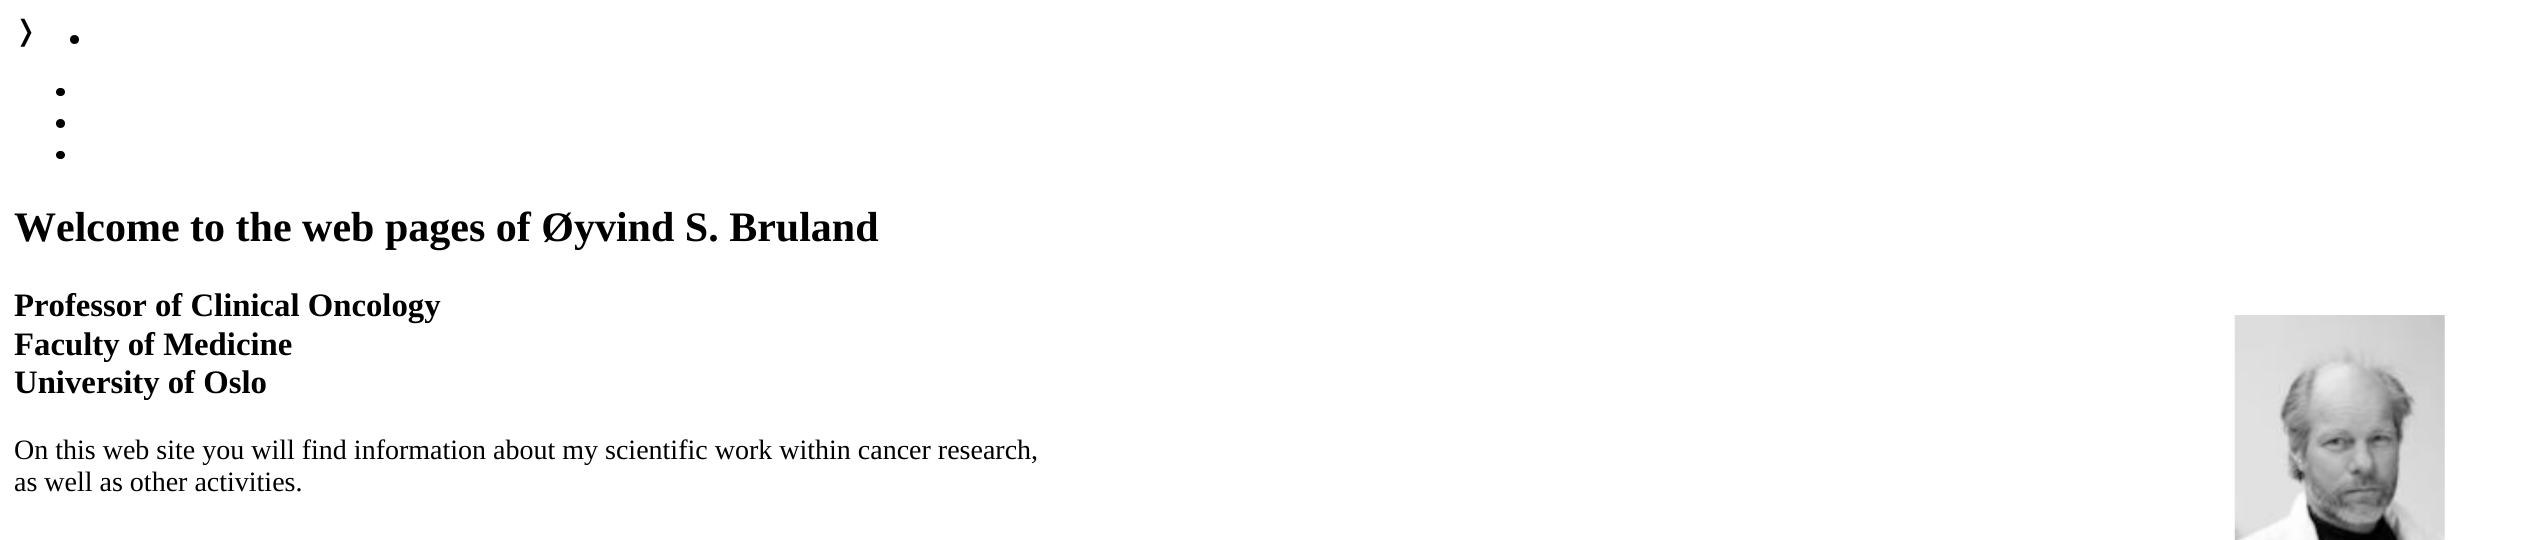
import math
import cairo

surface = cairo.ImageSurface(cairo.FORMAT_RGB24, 2528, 540)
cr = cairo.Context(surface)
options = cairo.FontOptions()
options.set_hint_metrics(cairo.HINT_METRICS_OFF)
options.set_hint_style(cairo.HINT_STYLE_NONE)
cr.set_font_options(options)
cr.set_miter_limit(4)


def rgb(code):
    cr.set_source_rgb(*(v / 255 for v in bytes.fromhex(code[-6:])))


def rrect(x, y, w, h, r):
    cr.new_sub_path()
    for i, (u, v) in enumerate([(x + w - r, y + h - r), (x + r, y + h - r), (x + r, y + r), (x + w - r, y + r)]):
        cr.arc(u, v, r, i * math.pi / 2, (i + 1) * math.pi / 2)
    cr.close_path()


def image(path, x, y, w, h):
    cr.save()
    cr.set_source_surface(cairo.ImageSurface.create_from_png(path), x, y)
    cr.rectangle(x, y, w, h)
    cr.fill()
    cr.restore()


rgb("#ffffff")
cr.paint()
rgb("#000000")
rrect(56, 88, 9, 8, 4)
cr.fill()
cr.arc(60.5, 123.5, 4.5, 0, 2 * math.pi)
cr.fill()
rrect(56, 151, 9, 8, 4)
cr.fill()
image("img/1.png", 2234, 315, 211, 225)
cr.arc(74.5, 39.5, 4.5, 0, 2 * math.pi)
cr.fill()
cr.select_font_face("DejaVu Sans")
cr.set_font_size(28)
cr.move_to(14, 40)
cr.show_text("❭")
cr.select_font_face("Liberation Serif", cairo.FONT_SLANT_NORMAL, cairo.FONT_WEIGHT_BOLD)
cr.set_font_size(42)
cr.move_to(14, 241)
cr.show_text("Welcome to the web pages of Øyvind S. Bruland")
cr.set_font_size(32.75)
for x, y, s in [
    (14, 316, "Professor of Clinical Oncology"),
    (14, 355, "Faculty of Medicine"),
    (14, 393, "University of Oslo"),
]:
    cr.move_to(x, y)
    cr.show_text(s)
cr.select_font_face("Liberation Serif")
cr.set_font_size(28)
cr.move_to(14, 459)
cr.show_text("On this web site you will find information about my scientific work within cancer research,")
cr.move_to(14, 491)
cr.show_text("as well as other activities.")
surface.write_to_png("page.png")
